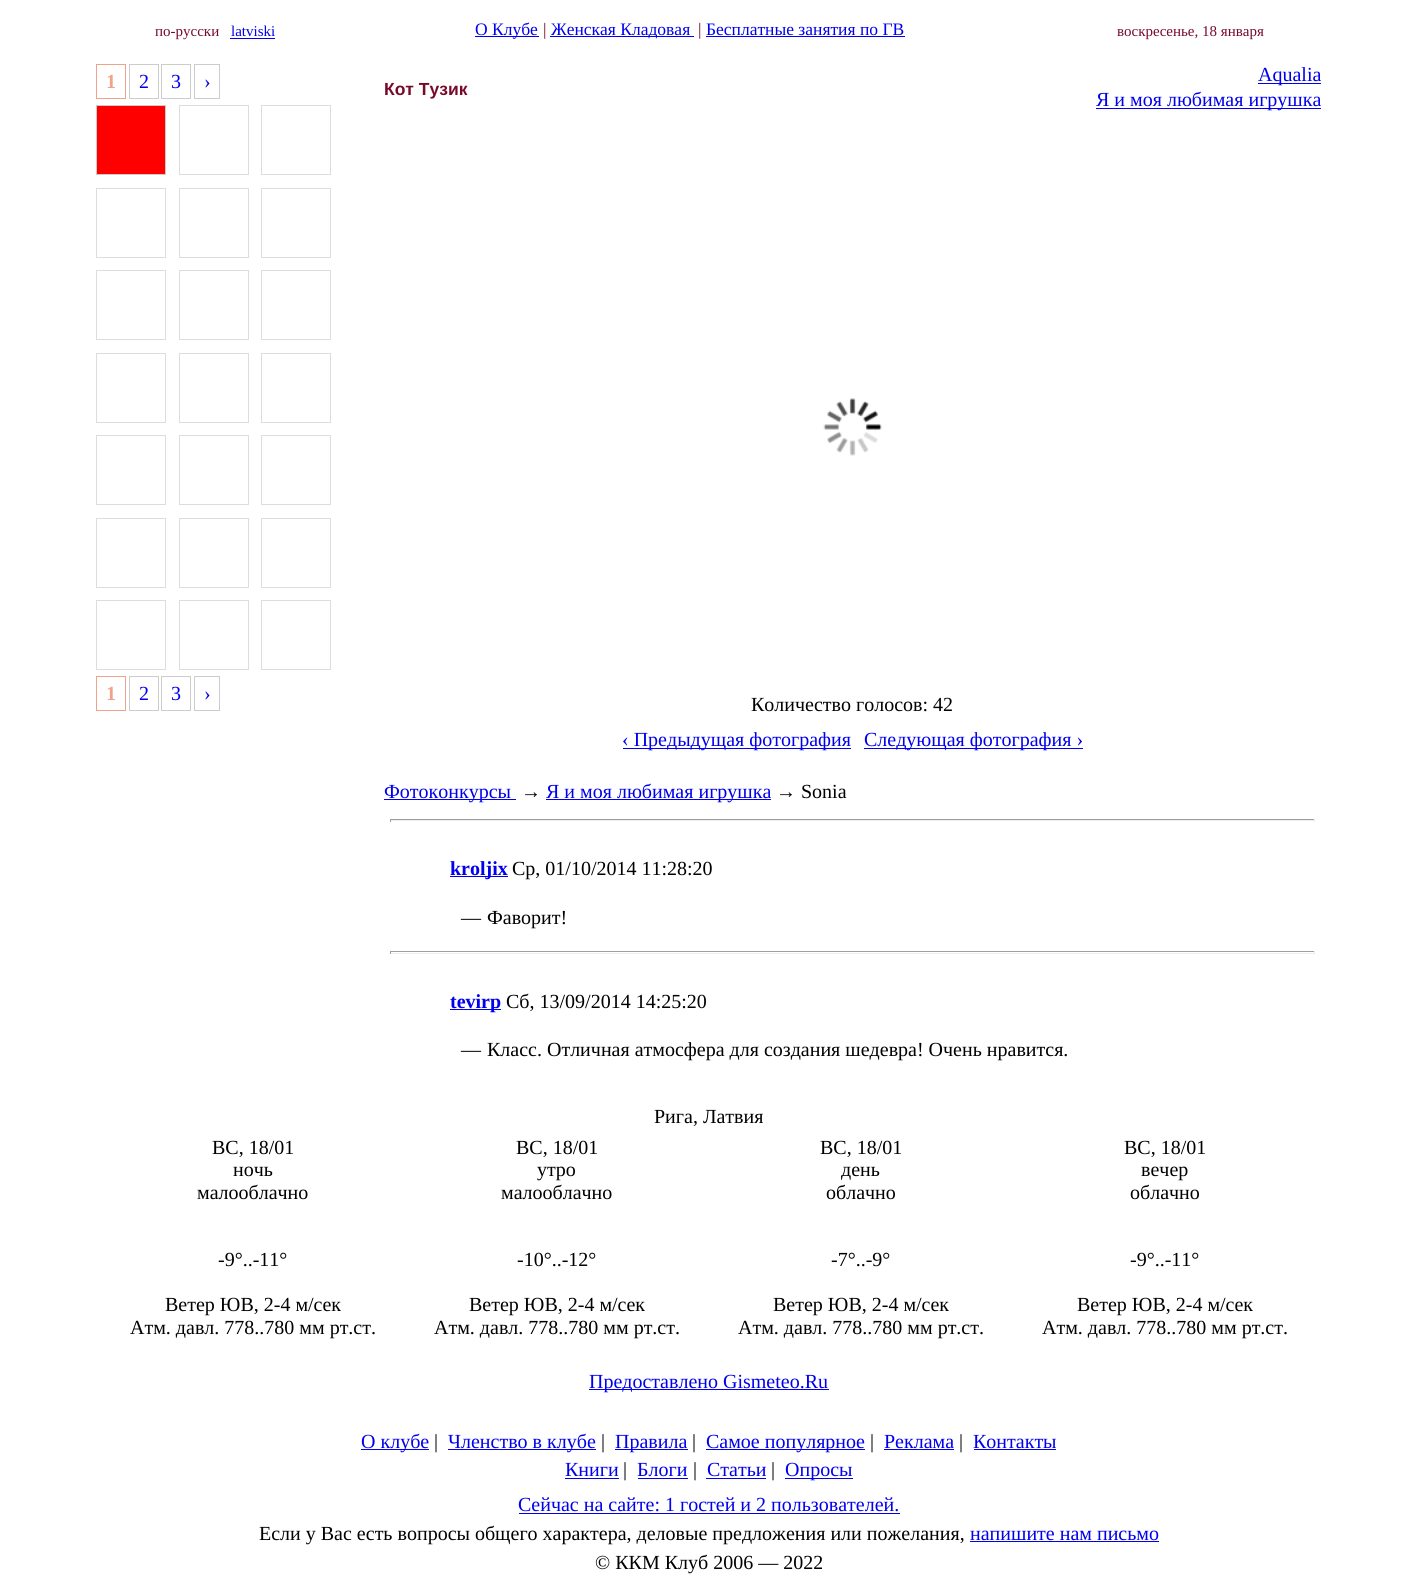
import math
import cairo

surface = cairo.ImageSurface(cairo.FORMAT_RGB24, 1417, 1595)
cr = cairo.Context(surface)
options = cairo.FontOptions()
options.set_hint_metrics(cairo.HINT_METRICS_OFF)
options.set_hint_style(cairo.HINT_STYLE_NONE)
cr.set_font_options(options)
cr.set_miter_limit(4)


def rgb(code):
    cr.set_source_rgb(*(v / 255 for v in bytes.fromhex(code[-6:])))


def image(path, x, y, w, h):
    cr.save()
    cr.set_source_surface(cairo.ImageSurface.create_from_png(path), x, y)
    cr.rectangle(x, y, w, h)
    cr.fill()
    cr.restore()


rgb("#ffffff")
cr.paint()
for x, y, w, h, color in [
    (230, 38, 45, 1, "#0000ee"),
    (475, 36, 64, 1, "#0000ee"),
    (550, 36, 144, 1, "#0000ee"),
    (706, 36, 199, 1, "#0000ee"),
]:
    rgb(color)
    cr.rectangle(x, y, w, h)
    cr.fill()
cr.rectangle(96.5, 64.5, 29, 34)
rgb("#efa38d")
cr.set_line_width(1)
cr.stroke()
cr.rectangle(129.5, 64.5, 29, 34)
rgb("#cccccc")
cr.stroke()
cr.rectangle(161.5, 64.5, 29, 34)
cr.stroke()
cr.rectangle(194.5, 64.5, 25, 34)
cr.stroke()
rgb("#ff0000")
cr.rectangle(96.5, 105.5, 69, 69)
cr.fill_preserve()
rgb("#cccccc")
cr.stroke()
cr.rectangle(179.5, 105.5, 69, 69)
rgb("#dddddd")
cr.stroke()
cr.rectangle(261.5, 105.5, 69, 69)
cr.stroke()
cr.rectangle(96.5, 188.5, 69, 69)
cr.stroke()
cr.rectangle(179.5, 188.5, 69, 69)
cr.stroke()
cr.rectangle(261.5, 188.5, 69, 69)
cr.stroke()
cr.rectangle(96.5, 270.5, 69, 69)
cr.stroke()
cr.rectangle(179.5, 270.5, 69, 69)
cr.stroke()
cr.rectangle(261.5, 270.5, 69, 69)
cr.stroke()
cr.rectangle(96.5, 353.5, 69, 69)
cr.stroke()
cr.rectangle(179.5, 353.5, 69, 69)
cr.stroke()
cr.rectangle(261.5, 353.5, 69, 69)
cr.stroke()
cr.rectangle(96.5, 435.5, 69, 69)
cr.stroke()
cr.rectangle(179.5, 435.5, 69, 69)
cr.stroke()
cr.rectangle(261.5, 435.5, 69, 69)
cr.stroke()
cr.rectangle(96.5, 518.5, 69, 69)
cr.stroke()
cr.rectangle(179.5, 518.5, 69, 69)
cr.stroke()
cr.rectangle(261.5, 518.5, 69, 69)
cr.stroke()
cr.rectangle(96.5, 600.5, 69, 69)
cr.stroke()
cr.rectangle(179.5, 600.5, 69, 69)
cr.stroke()
cr.rectangle(261.5, 600.5, 69, 69)
cr.stroke()
cr.rectangle(96.5, 676.5, 29, 34)
rgb("#efa38d")
cr.stroke()
cr.rectangle(129.5, 676.5, 29, 34)
rgb("#cccccc")
cr.stroke()
cr.rectangle(161.5, 676.5, 29, 34)
cr.stroke()
cr.rectangle(194.5, 676.5, 25, 34)
cr.stroke()
rgb("#0000ee")
cr.rectangle(1258, 83, 63, 1)
cr.fill()
cr.rectangle(1096, 108, 225, 1)
cr.fill()
image("img/1.png", 823, 398, 59, 58)
for x, y, w, h, color in [
    (623, 748, 228, 1, "#0000ee"),
    (864, 748, 219, 1, "#0000ee"),
    (384, 799, 132, 1, "#0000ee"),
    (546, 799, 225, 1, "#0000ee"),
    (390, 819, 925, 1, "#9f9f9f"),
    (1314, 819, 1, 3, "#eeeeee"),
    (390, 820, 925, 1, "#eeeeee"),
    (390, 819, 1, 3, "#9f9f9f"),
    (450, 876, 58, 1, "#0000ee"),
    (390, 951, 925, 1, "#9f9f9f"),
    (1314, 951, 1, 3, "#eeeeee"),
    (390, 953, 925, 1, "#eeeeee"),
    (390, 951, 1, 3, "#9f9f9f"),
    (450, 1009, 51, 1, "#0000ee"),
    (589, 1389, 240, 1, "#0000ee"),
    (361, 1449, 68, 1, "#0000ee"),
    (448, 1449, 148, 1, "#0000ee"),
    (615, 1449, 73, 1, "#0000ee"),
    (706, 1449, 159, 1, "#0000ee"),
    (884, 1449, 70, 1, "#0000ee"),
    (974, 1449, 82, 1, "#0000ee"),
    (565, 1478, 54, 1, "#0000ee"),
    (638, 1478, 50, 1, "#0000ee"),
    (706, 1478, 60, 1, "#0000ee"),
    (785, 1478, 68, 1, "#0000ee"),
    (519, 1513, 381, 1, "#0000ee"),
    (970, 1541, 189, 1, "#0000ee"),
]:
    rgb(color)
    cr.rectangle(x, y, w, h)
    cr.fill()
cr.select_font_face("Liberation Serif")
cr.set_font_size(15)
rgb("#770a2b")
cr.move_to(155, 36)
cr.show_text("по-русски")
rgb("#0000ee")
cr.move_to(231, 36)
cr.show_text("latviski")
cr.set_font_size(17.5)
cr.move_to(475, 35)
cr.show_text("О Клубе")
rgb("#770a2b")
cr.move_to(543, 35)
cr.show_text("|")
rgb("#0000ee")
cr.move_to(551, 35)
cr.show_text("Женская Кладовая")
rgb("#770a2b")
cr.move_to(698, 35)
cr.show_text("|")
rgb("#0000ee")
cr.move_to(706, 35)
cr.show_text("Бесплатные занятия по ГВ")
cr.set_font_size(15)
rgb("#770a2b")
cr.move_to(1117, 36)
cr.show_text("воскресенье, 18 января")
cr.select_font_face("Liberation Serif", cairo.FONT_SLANT_NORMAL, cairo.FONT_WEIGHT_BOLD)
cr.set_font_size(20)
rgb("#efa38d")
cr.move_to(106, 88)
cr.show_text("1")
cr.select_font_face("Liberation Serif")
rgb("#0000ee")
for x, y, s in [
    (139, 88, "2"),
    (171, 88, "3"),
    (204, 88, "›"),
]:
    cr.move_to(x, y)
    cr.show_text(s)
cr.select_font_face("Liberation Serif", cairo.FONT_SLANT_NORMAL, cairo.FONT_WEIGHT_BOLD)
rgb("#efa38d")
cr.move_to(106, 700)
cr.show_text("1")
cr.select_font_face("Liberation Serif")
rgb("#0000ee")
for x, y, s in [
    (139, 700, "2"),
    (171, 700, "3"),
    (204, 700, "›"),
]:
    cr.move_to(x, y)
    cr.show_text(s)
cr.select_font_face("Liberation Sans", cairo.FONT_SLANT_NORMAL, cairo.FONT_WEIGHT_BOLD)
cr.set_font_size(17.5)
rgb("#770a2b")
cr.move_to(384, 95)
cr.show_text("Кот Тузик")
cr.select_font_face("Liberation Serif")
cr.set_font_size(20)
rgb("#0000ee")
cr.move_to(1258, 81)
cr.show_text("Aqualia")
cr.move_to(1096, 106)
cr.show_text("Я и моя любимая игрушка")
rgb("#000000")
cr.move_to(751, 711)
cr.show_text("Количество голосов: 42")
rgb("#0000ee")
for x, y, s in [
    (622, 746, "‹ Предыдущая фотография"),
    (864, 746, "Следующая фотография ›"),
    (384, 798, "Фотоконкурсы"),
]:
    cr.move_to(x, y)
    cr.show_text(s)
rgb("#000000")
cr.move_to(521, 798)
cr.show_text("→")
rgb("#0000ee")
cr.move_to(546, 798)
cr.show_text("Я и моя любимая игрушка")
rgb("#000000")
cr.move_to(776, 798)
cr.show_text("→ Sonia")
cr.select_font_face("Liberation Serif", cairo.FONT_SLANT_NORMAL, cairo.FONT_WEIGHT_BOLD)
rgb("#0000ee")
cr.move_to(450, 875)
cr.show_text("kroljix")
cr.select_font_face("Liberation Serif")
rgb("#000000")
for x, y, s in [
    (512, 875, "Ср, 01/10/2014 11:28:20"),
    (461, 924, "—"),
    (487, 924, "Фаворит!"),
]:
    cr.move_to(x, y)
    cr.show_text(s)
cr.select_font_face("Liberation Serif", cairo.FONT_SLANT_NORMAL, cairo.FONT_WEIGHT_BOLD)
rgb("#0000ee")
cr.move_to(450, 1008)
cr.show_text("tevirp")
cr.select_font_face("Liberation Serif")
rgb("#000000")
for x, y, s in [
    (506, 1008, "Сб, 13/09/2014 14:25:20"),
    (461, 1056, "—"),
    (487, 1056, "Класс. Отличная атмосфера для создания шедевра! Очень нравится."),
    (654, 1123, "Рига, Латвия"),
    (212, 1154, "ВС, 18/01"),
    (233, 1176, "ночь"),
    (197, 1199, "малооблачно"),
    (218, 1266, "-9°..-11°"),
    (165, 1311, "Ветер ЮВ, 2-4 м/сек"),
    (130, 1334, "Атм. давл. 778..780 мм рт.ст."),
    (516, 1154, "ВС, 18/01"),
    (537, 1176, "утро"),
    (501, 1199, "малооблачно"),
    (517, 1266, "-10°..-12°"),
    (469, 1311, "Ветер ЮВ, 2-4 м/сек"),
    (434, 1334, "Атм. давл. 778..780 мм рт.ст."),
    (820, 1154, "ВС, 18/01"),
    (841, 1176, "день"),
    (826, 1199, "облачно"),
    (831, 1266, "-7°..-9°"),
    (773, 1311, "Ветер ЮВ, 2-4 м/сек"),
    (738, 1334, "Атм. давл. 778..780 мм рт.ст."),
    (1124, 1154, "ВС, 18/01"),
    (1141, 1176, "вечер"),
    (1130, 1199, "облачно"),
    (1130, 1266, "-9°..-11°"),
    (1077, 1311, "Ветер ЮВ, 2-4 м/сек"),
    (1042, 1334, "Атм. давл. 778..780 мм рт.ст."),
]:
    cr.move_to(x, y)
    cr.show_text(s)
rgb("#0000ee")
cr.move_to(589, 1388)
cr.show_text("Предоставлено Gismeteo.Ru")
cr.move_to(361, 1448)
cr.show_text("О клубе")
rgb("#000000")
cr.move_to(434, 1448)
cr.show_text("|")
rgb("#0000ee")
cr.move_to(448, 1448)
cr.show_text("Членство в клубе")
rgb("#000000")
cr.move_to(601, 1448)
cr.show_text("|")
rgb("#0000ee")
cr.move_to(615, 1448)
cr.show_text("Правила")
rgb("#000000")
cr.move_to(692, 1448)
cr.show_text("|")
rgb("#0000ee")
cr.move_to(706, 1448)
cr.show_text("Самое популярное")
rgb("#000000")
cr.move_to(870, 1448)
cr.show_text("|")
rgb("#0000ee")
cr.move_to(884, 1448)
cr.show_text("Реклама")
rgb("#000000")
cr.move_to(959, 1448)
cr.show_text("|")
rgb("#0000ee")
cr.move_to(973, 1448)
cr.show_text("Контакты")
cr.move_to(565, 1476)
cr.show_text("Книги")
rgb("#000000")
cr.move_to(623, 1476)
cr.show_text("|")
rgb("#0000ee")
cr.move_to(637, 1476)
cr.show_text("Блоги")
rgb("#000000")
cr.move_to(693, 1476)
cr.show_text("|")
rgb("#0000ee")
cr.move_to(707, 1476)
cr.show_text("Статьи")
rgb("#000000")
cr.move_to(771, 1476)
cr.show_text("|")
rgb("#0000ee")
cr.move_to(785, 1476)
cr.show_text("Опросы")
cr.move_to(518, 1511)
cr.show_text("Сейчас на сайте: 1 гостей и 2 пользователей.")
rgb("#000000")
cr.move_to(259, 1540)
cr.show_text("Если у Вас есть вопросы общего характера, деловые предложения или пожелания,")
rgb("#0000ee")
cr.move_to(970, 1540)
cr.show_text("напишите нам письмо")
rgb("#000000")
cr.move_to(595, 1569)
cr.show_text("© ККМ Клуб 2006 — 2022")
surface.write_to_png("page.png")
